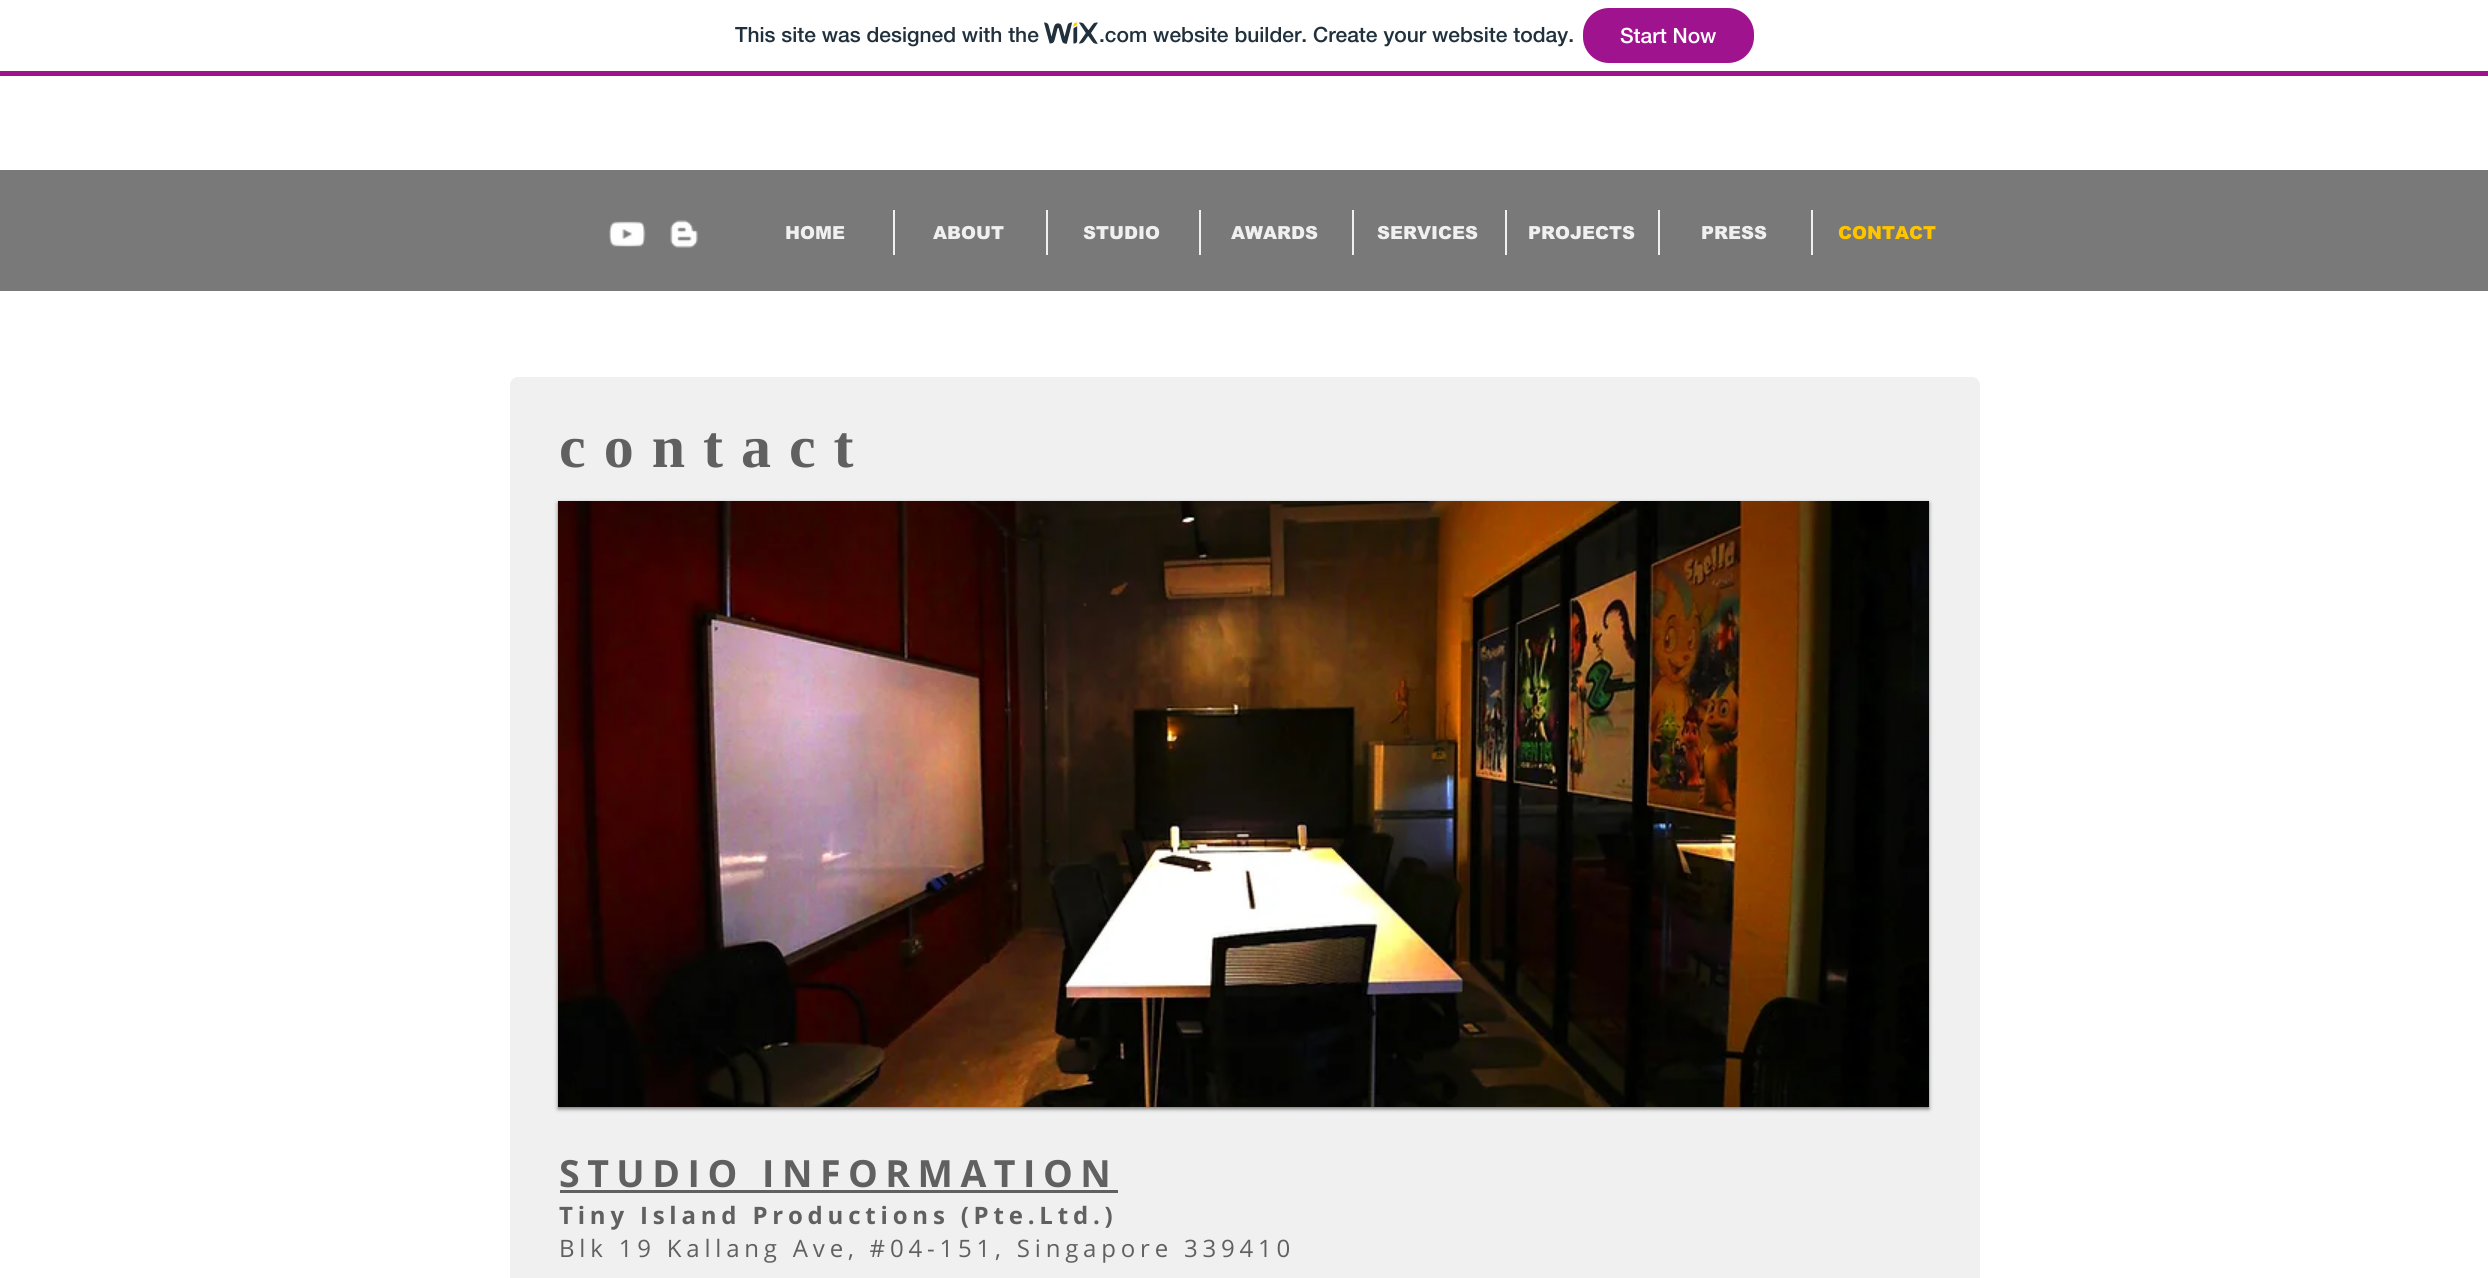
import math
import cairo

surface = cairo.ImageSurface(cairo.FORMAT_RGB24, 2488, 1278)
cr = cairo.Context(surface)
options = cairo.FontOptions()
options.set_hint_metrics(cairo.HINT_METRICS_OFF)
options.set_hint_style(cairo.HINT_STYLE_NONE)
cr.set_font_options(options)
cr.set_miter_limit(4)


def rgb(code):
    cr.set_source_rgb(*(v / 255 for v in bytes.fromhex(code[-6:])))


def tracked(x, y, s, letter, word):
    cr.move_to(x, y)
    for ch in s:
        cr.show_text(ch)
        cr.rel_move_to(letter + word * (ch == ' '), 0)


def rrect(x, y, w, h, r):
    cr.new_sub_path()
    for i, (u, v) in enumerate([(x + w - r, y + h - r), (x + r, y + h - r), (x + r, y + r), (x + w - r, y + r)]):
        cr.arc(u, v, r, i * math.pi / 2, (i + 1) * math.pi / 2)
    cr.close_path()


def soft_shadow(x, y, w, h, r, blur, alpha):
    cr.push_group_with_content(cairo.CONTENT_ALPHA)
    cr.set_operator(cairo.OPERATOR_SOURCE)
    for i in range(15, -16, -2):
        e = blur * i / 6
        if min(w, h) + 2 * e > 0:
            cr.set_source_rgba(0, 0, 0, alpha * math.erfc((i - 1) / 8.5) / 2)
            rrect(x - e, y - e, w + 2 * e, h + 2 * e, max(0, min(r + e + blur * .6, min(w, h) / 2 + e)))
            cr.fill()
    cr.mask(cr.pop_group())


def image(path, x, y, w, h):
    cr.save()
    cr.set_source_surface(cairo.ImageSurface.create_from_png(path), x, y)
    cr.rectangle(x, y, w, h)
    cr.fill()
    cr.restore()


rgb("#ffffff")
cr.paint()
rgb("#a0138e")
cr.rectangle(0, 71, 2488, 5)
cr.fill()
image("img/1.png", 1044, 22, 54, 22)
rrect(1584, 9, 169, 53, 25)
cr.fill_preserve()
cr.stroke()
rgb("#797979")
cr.rectangle(0, 170, 2488, 121)
cr.fill()
image("img/2.png", 609, 221, 37, 26)
image("img/3.png", 670, 220, 28, 28)
for x, y, w, h, color in [
    (893, 210, 2, 45, "#f0f0f0"),
    (1046, 210, 2, 45, "#f0f0f0"),
    (1199, 210, 2, 45, "#f0f0f0"),
    (1352, 210, 2, 45, "#f0f0f0"),
    (1505, 210, 2, 45, "#f0f0f0"),
    (1658, 210, 2, 45, "#f0f0f0"),
    (1811, 210, 2, 45, "#f0f0f0"),
]:
    rgb(color)
    cr.rectangle(x, y, w, h)
    cr.fill()
rrect(511, 378, 1468, 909, 7)
cr.fill_preserve()
cr.stroke()
rgb("#000000")
soft_shadow(558, 503, 1371, 606, 0, 2, 0.5)
image("img/4.png", 558, 501, 1371, 606)
rgb("#606060")
cr.rectangle(560, 1190, 558, 3)
cr.fill()
cr.select_font_face("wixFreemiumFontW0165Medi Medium")
cr.set_font_size(21)
rgb("#20303c")
cr.move_to(735, 42)
cr.show_text("This site was designed with the")
cr.move_to(1099, 42)
cr.show_text(".com website builder. Create your website today.")
rgb("#ffffff")
cr.move_to(1620, 43)
cr.show_text("Start Now")
cr.select_font_face("arial Black")
cr.set_font_size(18)
rgb("#f0f0f0")
for x, y, s in [
    (785, 239, "HOME"),
    (933, 239, "ABOUT"),
    (1083, 239, "STUDIO"),
    (1231, 239, "AWARDS"),
    (1377, 239, "SERVICES"),
    (1528, 239, "PROJECTS"),
    (1701, 239, "PRESS"),
]:
    cr.move_to(x, y)
    cr.show_text(s)
rgb("#ffc400")
cr.move_to(1838, 239)
cr.show_text("CONTACT")
cr.select_font_face("Liberation Serif", cairo.FONT_SLANT_NORMAL, cairo.FONT_WEIGHT_BOLD)
cr.set_font_size(60)
rgb("#606060")
tracked(559, 467, "contact", 18, 0)
cr.select_font_face("Open Sans", cairo.FONT_SLANT_NORMAL, cairo.FONT_WEIGHT_BOLD)
cr.set_font_size(37.5)
tracked(559, 1187, "STUDIO INFORMATION", 7.5, 0)
cr.set_font_size(24)
tracked(559, 1224, "Tiny Island Productions (Pte.Ltd.)", 4.8, 0)
cr.select_font_face("Open Sans")
tracked(559, 1257, "Blk 19 Kallang Ave, #04-151, Singapore 339410", 4.8, 0)
surface.write_to_png("page.png")
